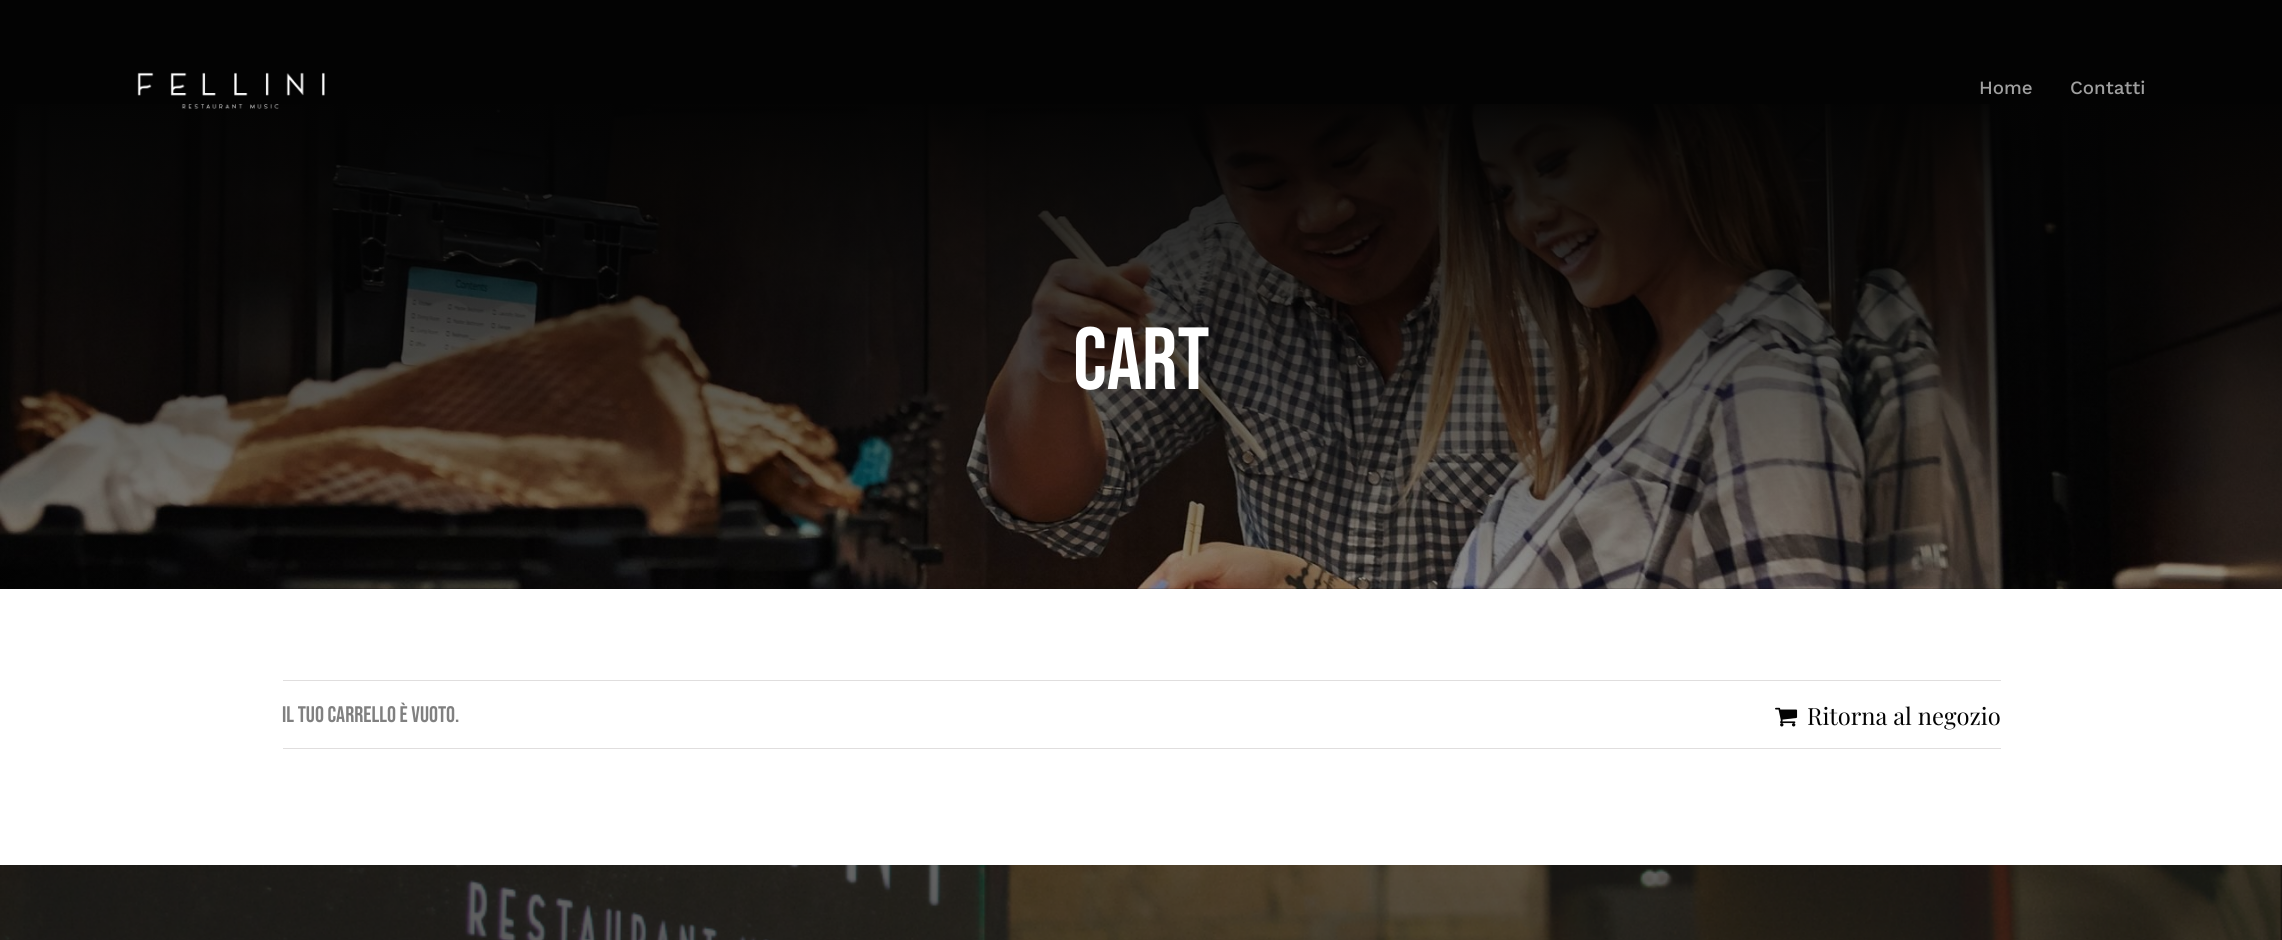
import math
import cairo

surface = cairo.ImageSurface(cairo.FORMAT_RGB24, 2282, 940)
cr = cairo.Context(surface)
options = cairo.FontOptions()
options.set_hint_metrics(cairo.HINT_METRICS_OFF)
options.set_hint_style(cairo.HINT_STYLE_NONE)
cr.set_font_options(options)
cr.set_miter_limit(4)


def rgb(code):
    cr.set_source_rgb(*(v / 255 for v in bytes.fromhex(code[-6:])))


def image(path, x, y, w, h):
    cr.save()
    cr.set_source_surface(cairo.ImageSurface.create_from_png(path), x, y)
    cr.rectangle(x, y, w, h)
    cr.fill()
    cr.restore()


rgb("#ffffff")
cr.paint()
rgb("#030303")
cr.rectangle(0, 0, 2282, 589)
cr.fill()
image("img/2.png", 0, 104, 2282, 485)
image("img/1.png", 137, 72, 188, 37)
rgb("#e0dede")
cr.rectangle(283, 680, 1718, 1)
cr.fill()
cr.rectangle(283, 748, 1718, 1)
cr.fill()
image("img/3.png", 1775, 707, 23, 20)
image("img/4.png", 0, 865, 2282, 75)
cr.select_font_face("Work Sans Medium")
cr.set_font_size(18.75)
rgb("#a0a0a0")
cr.move_to(1979, 94)
cr.show_text("Home")
cr.move_to(2070, 94)
cr.show_text("Contatti")
cr.select_font_face("Bebas Neue")
cr.set_font_size(88)
rgb("#ffffff")
cr.move_to(1073, 389)
cr.show_text("Cart")
cr.set_font_size(22.5)
rgb("#808080")
cr.move_to(282, 722)
cr.show_text("Il tuo carrello è vuoto.")
cr.select_font_face("Playfair Display")
cr.set_font_size(23.75)
rgb("#030303")
cr.move_to(1807, 725)
cr.show_text("Ritorna al negozio")
surface.write_to_png("page.png")
